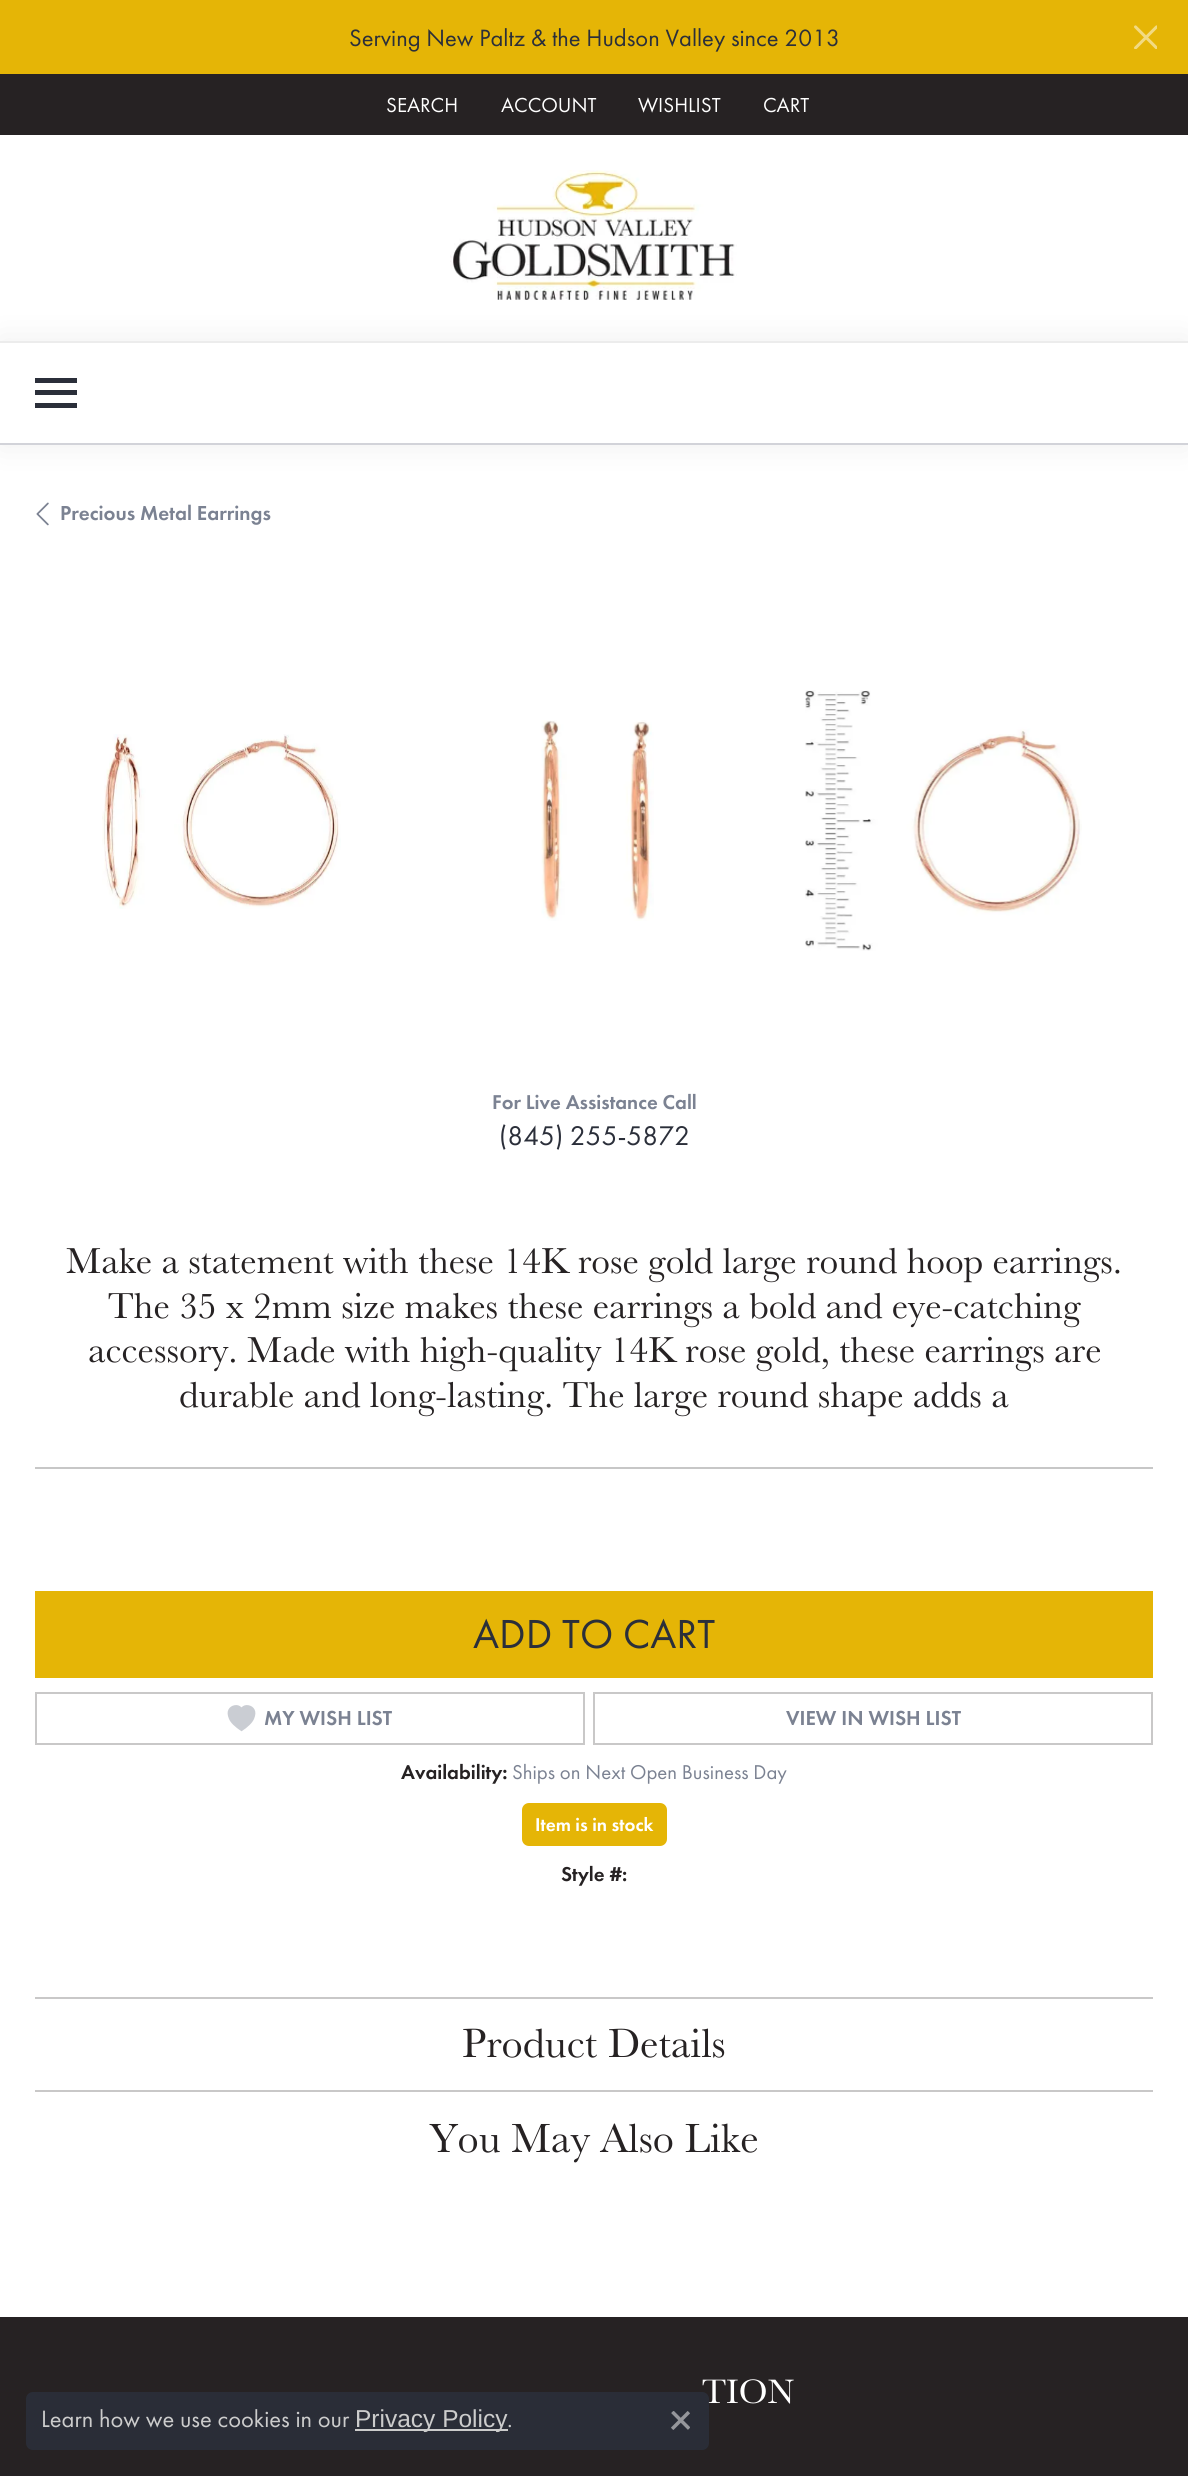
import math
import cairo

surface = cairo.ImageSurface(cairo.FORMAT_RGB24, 1188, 2476)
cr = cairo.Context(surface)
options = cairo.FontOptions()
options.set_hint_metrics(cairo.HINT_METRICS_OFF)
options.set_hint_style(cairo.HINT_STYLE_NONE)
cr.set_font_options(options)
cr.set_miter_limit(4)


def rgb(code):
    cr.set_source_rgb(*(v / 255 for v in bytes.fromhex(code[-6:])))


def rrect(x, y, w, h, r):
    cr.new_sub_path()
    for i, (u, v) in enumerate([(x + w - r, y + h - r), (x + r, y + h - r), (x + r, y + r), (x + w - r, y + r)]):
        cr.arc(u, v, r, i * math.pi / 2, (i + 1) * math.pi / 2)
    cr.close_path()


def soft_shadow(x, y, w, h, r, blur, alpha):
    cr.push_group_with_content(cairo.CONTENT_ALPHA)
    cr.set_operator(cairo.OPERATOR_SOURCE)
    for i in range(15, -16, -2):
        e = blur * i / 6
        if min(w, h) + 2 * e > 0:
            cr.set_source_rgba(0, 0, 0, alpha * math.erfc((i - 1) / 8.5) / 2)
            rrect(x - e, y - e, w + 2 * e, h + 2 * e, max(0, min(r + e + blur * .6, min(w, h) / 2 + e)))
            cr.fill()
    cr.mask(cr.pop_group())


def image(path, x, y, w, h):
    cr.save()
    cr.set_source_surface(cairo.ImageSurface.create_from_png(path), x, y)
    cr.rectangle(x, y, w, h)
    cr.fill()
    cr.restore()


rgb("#ffffff")
cr.paint()
rgb("#e5b506")
cr.rectangle(0, 0, 1188, 74)
cr.fill()
image("img/1.png", 1134, 25, 23, 24)
rgb("#262223")
cr.rectangle(0, 74, 1188, 61)
cr.fill()
image("img/2.png", 450, 170, 287, 130)
rgb("#000000")
soft_shadow(0, 341, 1188, 104, 0, 17.5, 0.07)
for x, y, w, h, color in [
    (0, 343, 1188, 100, "#ffffff"),
    (0, 341, 1188, 2, "#ececec"),
    (0, 443, 1188, 2, "#d2d3d9"),
    (35, 378, 42, 5, "#2b2f3a"),
    (35, 390, 42, 5, "#2b2f3a"),
    (35, 403, 42, 5, "#2b2f3a"),
]:
    rgb(color)
    cr.rectangle(x, y, w, h)
    cr.fill()
image("img/3.png", 36, 502, 13, 24)
image("img/4.png", 102, 734, 239, 175)
image("img/5.png", 541, 720, 113, 201)
image("img/6.png", 805, 690, 277, 261)
rgb("#c7c7c7")
cr.rectangle(35, 1467, 1118, 2)
cr.fill()
rgb("#e5b506")
cr.rectangle(35, 1591, 1118, 87)
cr.fill()
cr.rectangle(36, 1693, 548, 51)
rgb("#c9c8c8")
cr.stroke()
image("img/7.png", 227, 1705, 29, 27)
cr.rectangle(594, 1693, 558, 51)
cr.stroke()
rgb("#e5b506")
rrect(522, 1803, 145, 43, 7)
cr.fill()
for x, y, w, h, color in [
    (35, 1997, 1118, 2, "#c9c8c8"),
    (35, 2090, 1118, 2, "#c9c8c8"),
    (0, 2317, 1188, 159, "#262223"),
]:
    rgb(color)
    cr.rectangle(x, y, w, h)
    cr.fill()
cr.select_font_face("Futura PT")
cr.set_font_size(24.5)
rgb("#2b2f3a")
cr.move_to(349, 46)
cr.show_text("Serving New Paltz & the Hudson Valley since 2013")
cr.set_font_size(21)
rgb("#ffffff")
for x, y, s in [
    (386, 112, "SEARCH"),
    (501, 112, "ACCOUNT"),
    (638, 112, "WISHLIST"),
    (763, 112, "CART"),
]:
    cr.move_to(x, y)
    cr.show_text(s)
cr.select_font_face("Futura PT Medium")
rgb("#7b8292")
cr.move_to(60, 520)
cr.show_text("Precious Metal Earrings")
cr.set_font_size(20.75)
cr.move_to(492, 1109)
cr.show_text("For Live Assistance Call")
cr.select_font_face("Futura PT")
cr.set_font_size(28)
rgb("#2b2f3a")
cr.move_to(499, 1145)
cr.show_text("(845) 255-5872")
cr.select_font_face("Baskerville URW")
cr.set_font_size(37.2)
rgb("#262223")
for x, y, s in [
    (66, 1273, "Make a statement with these 14K rose gold large round hoop earrings."),
    (108, 1318, "The 35 x 2mm size makes these earrings a bold and eye-catching"),
    (88, 1362, "accessory. Made with high-quality 14K rose gold, these earrings are"),
    (179, 1407, "durable and long-lasting. The large round shape adds a"),
]:
    cr.move_to(x, y)
    cr.show_text(s)
cr.select_font_face("Futura PT")
cr.set_font_size(42)
rgb("#2b2f3a")
cr.move_to(473, 1648)
cr.show_text("ADD TO CART")
cr.select_font_face("Futura PT Medium")
cr.set_font_size(21)
rgb("#7b8292")
cr.move_to(264, 1725)
cr.show_text("MY WISH LIST")
cr.move_to(786, 1725)
cr.show_text("VIEW IN WISH LIST")
cr.set_font_size(20.75)
rgb("#262223")
cr.move_to(401, 1779)
cr.show_text("Availability:")
cr.select_font_face("Futura PT")
rgb("#7b8292")
cr.move_to(512, 1779)
cr.show_text("Ships on Next Open Business Day")
cr.select_font_face("Futura PT Medium")
cr.set_font_size(19.25)
rgb("#ffffff")
cr.move_to(535, 1831)
cr.show_text("Item is in stock")
cr.set_font_size(20.75)
rgb("#262223")
cr.move_to(561, 1881)
cr.show_text("Style #:")
cr.select_font_face("Baskerville URW")
cr.set_font_size(42)
cr.move_to(462, 2057)
cr.show_text("Product Details")
cr.move_to(430, 2152)
cr.show_text("You May Also Like")
cr.set_font_size(35)
rgb("#ffffff")
cr.move_to(702, 2403)
cr.show_text("TION")
cr.set_source_rgba(0.169, 0.184, 0.227, 0.9)
rrect(26, 2392, 683, 58, 7)
cr.fill()
cr.select_font_face("Futura PT")
cr.set_font_size(24.5)
rgb("#cccccc")
cr.move_to(41, 2427)
cr.show_text("Learn how we use cookies in our")
cr.rectangle(355, 2429, 153, 2)
cr.fill()
cr.select_font_face("Liberation Sans")
cr.move_to(355, 2427)
cr.show_text("Privacy Policy")
cr.select_font_face("Futura PT")
cr.move_to(507, 2427)
cr.show_text(".")
image("img/8.png", 671, 2411, 19, 19)
surface.write_to_png("page.png")
